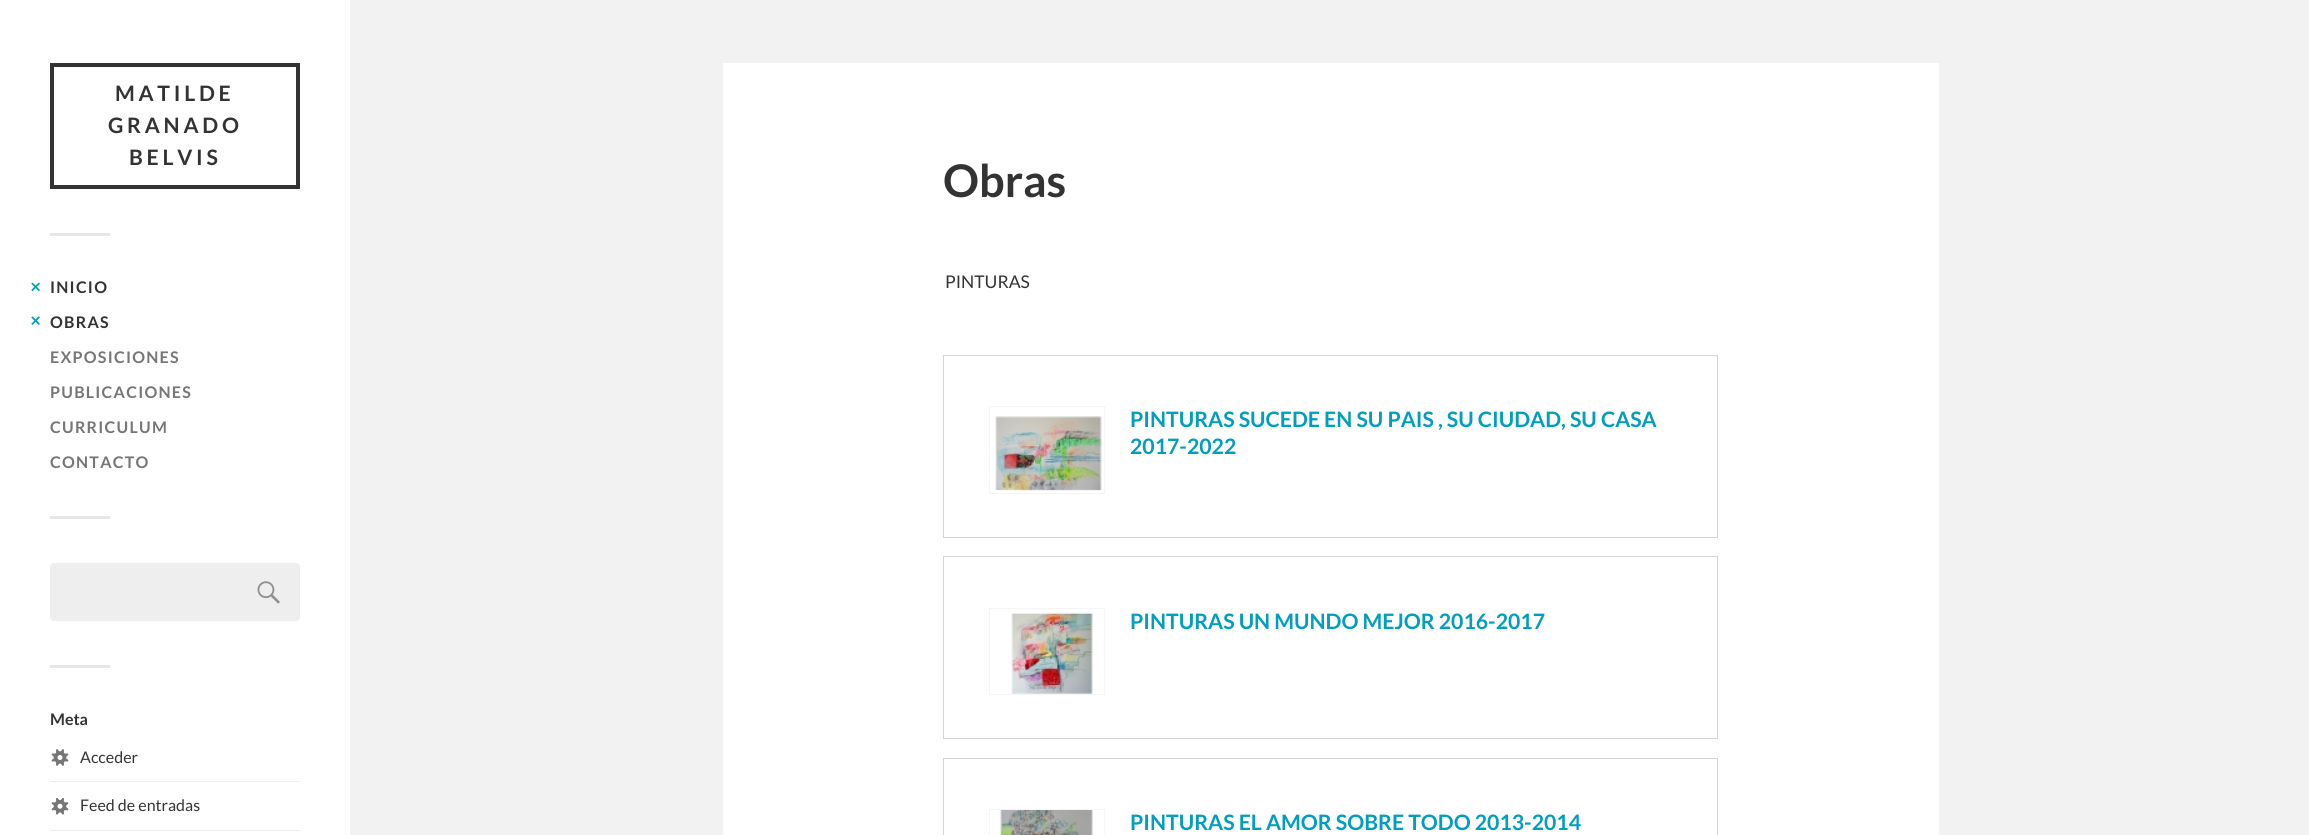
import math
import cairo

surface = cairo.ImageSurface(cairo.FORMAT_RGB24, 2309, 835)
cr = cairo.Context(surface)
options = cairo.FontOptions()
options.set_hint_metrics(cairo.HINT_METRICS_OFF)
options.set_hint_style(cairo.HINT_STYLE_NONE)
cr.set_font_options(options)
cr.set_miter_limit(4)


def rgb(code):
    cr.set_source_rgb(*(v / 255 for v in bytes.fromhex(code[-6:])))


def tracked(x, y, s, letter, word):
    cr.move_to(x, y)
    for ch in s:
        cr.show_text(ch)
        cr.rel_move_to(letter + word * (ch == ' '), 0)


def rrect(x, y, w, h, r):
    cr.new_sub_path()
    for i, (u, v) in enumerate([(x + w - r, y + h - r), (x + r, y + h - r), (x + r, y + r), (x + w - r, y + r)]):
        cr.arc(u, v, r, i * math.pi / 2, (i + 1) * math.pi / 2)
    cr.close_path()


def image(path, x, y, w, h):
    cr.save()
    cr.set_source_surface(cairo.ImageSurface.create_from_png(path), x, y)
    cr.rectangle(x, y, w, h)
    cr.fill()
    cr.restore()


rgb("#f2f2f2")
cr.paint()
rgb("#ffffff")
cr.rectangle(0, 0, 350, 835)
cr.fill()
cr.rectangle(52, 65, 246, 122)
rgb("#333333")
cr.set_line_width(4)
cr.stroke()
rgb("#e7e7e7")
cr.rectangle(50, 233, 60, 3)
cr.fill()
image("img/1.png", 31, 282, 9, 10)
image("img/2.png", 31, 316, 9, 9)
cr.rectangle(50, 516, 60, 3)
cr.fill()
rgb("#eeeeee")
rrect(50, 563, 250, 58, 4)
cr.fill()
image("img/3.png", 257, 581, 23, 23)
rgb("#e7e7e7")
cr.rectangle(50, 665, 60, 3)
cr.fill()
rgb("#eeeeee")
cr.rectangle(50, 781, 250, 1)
cr.fill()
image("img/4.png", 51, 749, 18, 17)
cr.rectangle(50, 830, 250, 1)
cr.fill()
image("img/5.png", 51, 797, 18, 18)
rgb("#ffffff")
cr.rectangle(723, 63, 1216, 772)
cr.fill()
cr.rectangle(943.5, 355.5, 774, 182)
rgb("#d5d5d5")
cr.set_line_width(1)
cr.stroke()
cr.rectangle(989.5, 406.5, 115, 87)
rgb("#f5f5f5")
cr.stroke()
image("img/6.png", 995, 415, 108, 77)
cr.rectangle(943.5, 556.5, 774, 182)
rgb("#d5d5d5")
cr.stroke()
cr.rectangle(989.5, 608.5, 115, 86)
rgb("#f5f5f5")
cr.stroke()
image("img/7.png", 1011, 612, 82, 82)
cr.rectangle(943.5, 758.5, 774, 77)
rgb("#d5d5d5")
cr.stroke()
cr.rectangle(989.5, 809.5, 115, 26)
rgb("#f5f5f5")
cr.stroke()
image("img/8.png", 999, 810, 94, 25)
cr.select_font_face("Lato", cairo.FONT_SLANT_NORMAL, cairo.FONT_WEIGHT_BOLD)
cr.set_font_size(21.25)
rgb("#333333")
for x, y, s in [
    (115, 101, "MATILDE"),
    (108, 133, "GRANADO"),
    (129, 165, "BELVIS"),
]:
    tracked(x, y, s, 3.75, 0)
cr.set_font_size(16)
tracked(50, 293, "INICIO", 1.25, 0)
tracked(50, 328, "OBRAS", 1.25, 0)
rgb("#767676")
for x, y, s in [
    (50, 363, "EXPOSICIONES"),
    (50, 398, "PUBLICACIONES"),
    (50, 433, "CURRICULUM"),
    (50, 468, "CONTACTO"),
]:
    tracked(x, y, s, 1.25, 0)
rgb("#333333")
cr.move_to(50, 725)
cr.show_text("Meta")
cr.select_font_face("Lato")
cr.move_to(80, 763)
cr.show_text("Acceder")
cr.move_to(80, 811)
cr.show_text("Feed de entradas")
cr.select_font_face("Lato", cairo.FONT_SLANT_NORMAL, cairo.FONT_WEIGHT_BOLD)
cr.set_font_size(45)
cr.move_to(943, 197)
cr.show_text("Obras")
cr.select_font_face("Lato")
cr.set_font_size(17.5)
cr.move_to(945, 288)
cr.show_text("PINTURAS")
cr.select_font_face("Lato", cairo.FONT_SLANT_NORMAL, cairo.FONT_WEIGHT_BOLD)
cr.set_font_size(21.25)
rgb("#019ebd")
for x, y, s in [
    (1130, 427, "PINTURAS SUCEDE EN SU PAIS , SU CIUDAD, SU CASA"),
    (1130, 454, "2017-2022"),
    (1130, 629, "PINTURAS UN MUNDO MEJOR 2016-2017"),
    (1130, 830, "PINTURAS EL AMOR SOBRE TODO 2013-2014"),
]:
    cr.move_to(x, y)
    cr.show_text(s)
surface.write_to_png("page.png")
